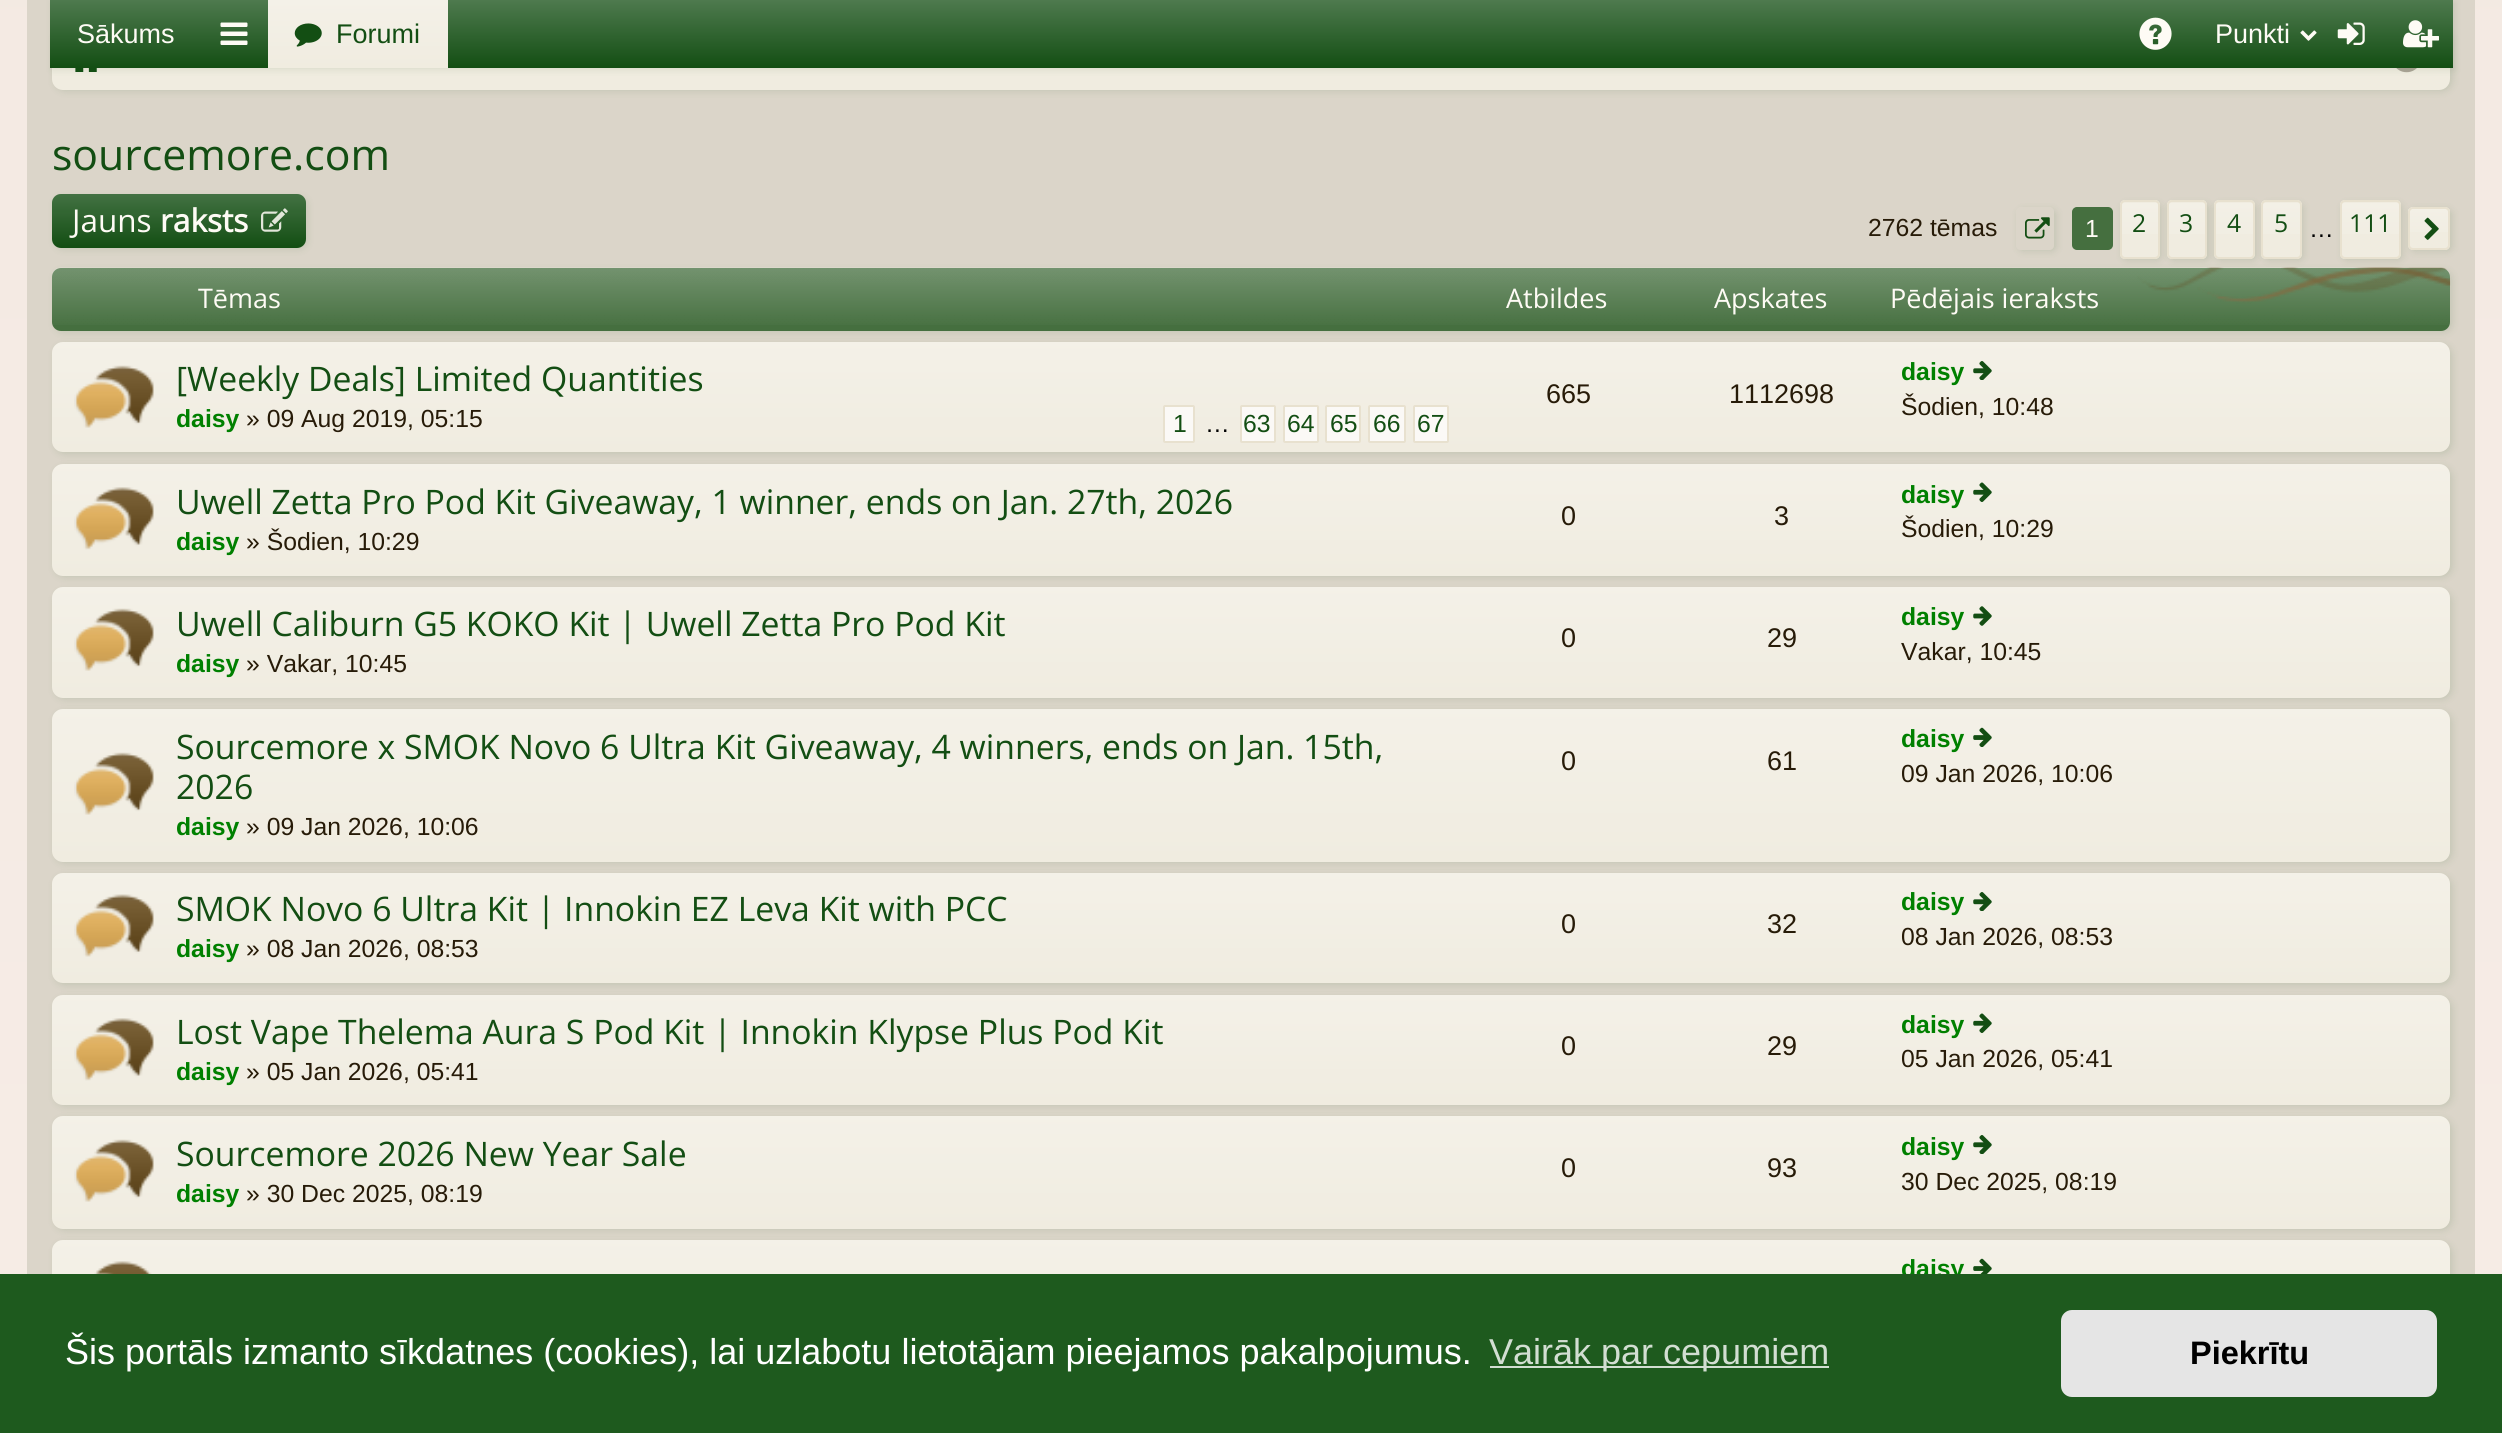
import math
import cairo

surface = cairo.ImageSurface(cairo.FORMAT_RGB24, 2502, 1433)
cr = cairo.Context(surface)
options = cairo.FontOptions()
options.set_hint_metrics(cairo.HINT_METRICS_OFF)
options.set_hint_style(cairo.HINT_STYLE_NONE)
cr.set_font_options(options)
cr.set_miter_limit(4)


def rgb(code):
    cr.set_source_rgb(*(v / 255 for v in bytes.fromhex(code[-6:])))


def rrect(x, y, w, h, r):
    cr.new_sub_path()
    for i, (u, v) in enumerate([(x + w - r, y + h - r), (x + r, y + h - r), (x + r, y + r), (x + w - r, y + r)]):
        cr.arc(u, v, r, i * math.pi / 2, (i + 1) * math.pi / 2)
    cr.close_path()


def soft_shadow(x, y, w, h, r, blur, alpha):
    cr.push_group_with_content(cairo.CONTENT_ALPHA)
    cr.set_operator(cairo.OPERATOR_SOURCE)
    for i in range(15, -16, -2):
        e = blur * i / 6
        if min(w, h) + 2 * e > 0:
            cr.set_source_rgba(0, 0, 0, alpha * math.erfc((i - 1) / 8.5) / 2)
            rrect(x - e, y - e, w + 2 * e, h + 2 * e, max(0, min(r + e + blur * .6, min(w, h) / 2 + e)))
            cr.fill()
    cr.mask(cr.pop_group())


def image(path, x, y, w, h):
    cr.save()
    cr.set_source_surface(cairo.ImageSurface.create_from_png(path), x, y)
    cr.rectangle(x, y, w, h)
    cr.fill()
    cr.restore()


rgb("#ffffff")
cr.paint()
gradient = cairo.LinearGradient(1251, -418, 1251, 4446)
gradient.add_color_stop_rgba(0, 0.886, 0.867, 0.82, 1)
gradient.add_color_stop_rgba(0.09, 0.957, 0.918, 0.89, 1)
gradient.add_color_stop_rgba(1, 0.984, 0.941, 0.922, 1)
cr.set_source(gradient)
cr.rectangle(0, 0, 2502, 1274)
cr.fill()
rgb("#dbd5c9")
cr.rectangle(27, 0, 2448, 1274)
cr.fill()
rgb("#134e13")
soft_shadow(54, 29, 2399, 63, 11, 3.5, 0.1)
rgb("#f0ece0")
rrect(52, 27, 2398, 63, 11)
cr.fill()
image("img/1.png", 75, 68, 22, 4)
image("img/2.png", 2396, 68, 21, 5)
rgb("#134e13")
soft_shadow(52, 2, 2403, 68, 0, 3.5, 0.1)
gradient = cairo.LinearGradient(1251, 0, 1251, 68)
gradient.add_color_stop_rgba(0, 0.306, 0.478, 0.306, 1)
gradient.add_color_stop_rgba(1, 0.075, 0.306, 0.075, 1)
cr.set_source(gradient)
cr.rectangle(50, 0, 2403, 68)
cr.fill()
image("img/3.png", 220, 22, 28, 23)
gradient = cairo.LinearGradient(358, 0, 358, 68)
gradient.add_color_stop_rgba(0, 0.957, 0.945, 0.91, 1)
gradient.add_color_stop_rgba(1, 0.941, 0.925, 0.878, 1)
cr.set_source(gradient)
cr.rectangle(268, 0, 180, 68)
cr.fill()
image("img/4.png", 294, 23, 28, 24)
image("img/5.png", 2139, 17, 33, 33)
image("img/6.png", 2300, 30, 17, 11)
image("img/7.png", 2337, 22, 28, 23)
image("img/8.png", 2403, 20, 36, 28)
rgb("#134e13")
soft_shadow(54, 196, 254, 54, 9, 3.5, 0.1)
rgb("#134e13")
rrect(52, 194, 254, 54, 9)
cr.fill()
gradient = cairo.LinearGradient(179, 194, 179, 248)
gradient.add_color_stop_rgba(0, 1, 1, 1, 0.2)
gradient.add_color_stop_rgba(1, 1, 1, 1, 0)
cr.set_source(gradient)
rrect(52, 194, 254, 54, 9)
cr.fill()
image("img/9.png", 261, 208, 27, 24)
cr.save()
cr.set_fill_rule(cairo.FILL_RULE_EVEN_ODD)
cr.new_path()
cr.move_to(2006, 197)
cr.line_to(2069, 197)
cr.line_to(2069, 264)
cr.line_to(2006, 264)
cr.close_path()
cr.move_to(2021, 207)
cr.line_to(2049, 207)
cr.curve_to(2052, 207, 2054, 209, 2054, 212)
cr.line_to(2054, 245)
cr.curve_to(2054, 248, 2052, 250, 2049, 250)
cr.line_to(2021, 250)
cr.curve_to(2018, 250, 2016, 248, 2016, 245)
cr.line_to(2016, 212)
cr.curve_to(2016, 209, 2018, 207, 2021, 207)
cr.close_path()
cr.clip()
rgb("#134e13")
soft_shadow(2018, 209, 39, 43, 5, 3.5, 0.1)
cr.restore()
image("img/10.png", 2025, 217, 25, 22)
rgb("#456f3f")
rrect(2073, 208, 39, 41, 4)
cr.fill_preserve()
cr.stroke()
rgb("#134e13")
soft_shadow(2122, 203, 40, 58, 5, 3.5, 0.1)
rgb("#f0ece0")
rrect(2120, 200, 40, 59, 5)
cr.fill()
gradient = cairo.LinearGradient(2140, 203, 2140, 257)
gradient.add_color_stop_rgba(0, 1, 1, 1, 0.2)
gradient.add_color_stop_rgba(1, 1, 1, 1, 0)
cr.set_source(gradient)
cr.rectangle(2120, 203, 40, 31)
cr.fill()
rrect(2121, 201, 38, 57, 4)
rgb("#e8e1cf")
cr.stroke()
rgb("#134e13")
soft_shadow(2169, 203, 41, 58, 5, 3.5, 0.1)
rgb("#f0ece0")
rrect(2167, 200, 40, 59, 5)
cr.fill()
gradient = cairo.LinearGradient(2187, 203, 2187, 257)
gradient.add_color_stop_rgba(0, 1, 1, 1, 0.2)
gradient.add_color_stop_rgba(1, 1, 1, 1, 0)
cr.set_source(gradient)
cr.rectangle(2167, 203, 40, 31)
cr.fill()
rrect(2168, 201, 38, 57, 4)
rgb("#e8e1cf")
cr.stroke()
rgb("#134e13")
soft_shadow(2216, 203, 41, 58, 5, 3.5, 0.1)
rgb("#f0ece0")
rrect(2214, 200, 41, 59, 5)
cr.fill()
gradient = cairo.LinearGradient(2234, 203, 2234, 257)
gradient.add_color_stop_rgba(0, 1, 1, 1, 0.2)
gradient.add_color_stop_rgba(1, 1, 1, 1, 0)
cr.set_source(gradient)
cr.rectangle(2214, 203, 41, 31)
cr.fill()
rrect(2215, 201, 39, 57, 4)
rgb("#e8e1cf")
cr.stroke()
rgb("#134e13")
soft_shadow(2264, 203, 40, 58, 5, 3.5, 0.1)
rgb("#f0ece0")
rrect(2261, 200, 41, 59, 5)
cr.fill()
gradient = cairo.LinearGradient(2282, 203, 2282, 257)
gradient.add_color_stop_rgba(0, 1, 1, 1, 0.2)
gradient.add_color_stop_rgba(1, 1, 1, 1, 0)
cr.set_source(gradient)
cr.rectangle(2261, 203, 41, 31)
cr.fill()
rrect(2262, 201, 39, 57, 4)
rgb("#e8e1cf")
cr.stroke()
rgb("#134e13")
soft_shadow(2342, 203, 61, 58, 5, 3.5, 0.1)
rgb("#f0ece0")
rrect(2340, 200, 61, 59, 5)
cr.fill()
gradient = cairo.LinearGradient(2370, 203, 2370, 257)
gradient.add_color_stop_rgba(0, 1, 1, 1, 0.2)
gradient.add_color_stop_rgba(1, 1, 1, 1, 0)
cr.set_source(gradient)
cr.rectangle(2340, 203, 61, 31)
cr.fill()
rrect(2341, 201, 59, 57, 4)
rgb("#e8e1cf")
cr.stroke()
rgb("#134e13")
soft_shadow(2410, 209, 43, 43, 5, 3.5, 0.1)
rgb("#f0ece0")
rrect(2408, 207, 42, 43, 5)
cr.fill()
gradient = cairo.LinearGradient(2429, 209, 2429, 248)
gradient.add_color_stop_rgba(0, 1, 1, 1, 0.2)
gradient.add_color_stop_rgba(1, 1, 1, 1, 0)
cr.set_source(gradient)
cr.rectangle(2408, 209, 42, 23)
cr.fill()
rrect(2409, 208, 40, 41, 4)
rgb("#e8e1cf")
cr.stroke()
image("img/11.png", 2424, 217, 15, 23)
rgb("#134e13")
soft_shadow(54, 344, 2399, 111, 11, 3.5, 0.1)
rgb("#f0ece0")
rrect(52, 342, 2398, 110, 11)
cr.fill()
gradient = cairo.LinearGradient(1251, 342, 1251, 452)
gradient.add_color_stop_rgba(0, 1, 1, 1, 0.25)
gradient.add_color_stop_rgba(1, 1, 1, 1, 0)
cr.set_source(gradient)
rrect(52, 342, 2398, 110, 11)
cr.fill()
rgb("#134e13")
soft_shadow(54, 270, 2399, 63, 9, 3.5, 0.1)
rgb("#456f3f")
rrect(52, 268, 2398, 63, 9)
cr.fill()
image("img/12.png", 52, 267, 2399, 58)
image("img/13.png", 74, 365, 80, 63)
rgb("#fbf9f6")
rrect(1164, 406, 30, 36, 1)
cr.fill_preserve()
rgb("#e8e1cf")
cr.stroke()
rgb("#fbf9f6")
rrect(1241, 406, 34, 36, 1)
cr.fill_preserve()
rgb("#e8e1cf")
cr.stroke()
rgb("#fbf9f6")
rrect(1284, 406, 34, 36, 1)
cr.fill_preserve()
rgb("#e8e1cf")
cr.stroke()
rgb("#fbf9f6")
rrect(1326, 406, 34, 36, 1)
cr.fill_preserve()
rgb("#e8e1cf")
cr.stroke()
rgb("#fbf9f6")
rrect(1369, 406, 36, 36, 1)
cr.fill_preserve()
rgb("#e8e1cf")
cr.stroke()
rgb("#fbf9f6")
rrect(1414, 406, 34, 36, 1)
cr.fill_preserve()
rgb("#e8e1cf")
cr.stroke()
image("img/14.png", 1973, 361, 19, 19)
rgb("#134e13")
soft_shadow(54, 466, 2399, 112, 11, 3.5, 0.1)
rgb("#f0ece0")
rrect(52, 464, 2398, 112, 11)
cr.fill()
gradient = cairo.LinearGradient(1251, 463, 1251, 576)
gradient.add_color_stop_rgba(0, 1, 1, 1, 0.25)
gradient.add_color_stop_rgba(1, 1, 1, 1, 0)
cr.set_source(gradient)
rrect(52, 464, 2398, 112, 11)
cr.fill()
image("img/15.png", 74, 487, 80, 63)
image("img/16.png", 1973, 482, 19, 20)
rgb("#134e13")
soft_shadow(54, 590, 2399, 110, 11, 3.5, 0.1)
rgb("#f0ece0")
rrect(52, 587, 2398, 111, 11)
cr.fill()
gradient = cairo.LinearGradient(1251, 587, 1251, 698)
gradient.add_color_stop_rgba(0, 1, 1, 1, 0.25)
gradient.add_color_stop_rgba(1, 1, 1, 1, 0)
cr.set_source(gradient)
rrect(52, 587, 2398, 111, 11)
cr.fill()
image("img/17.png", 74, 608, 80, 63)
image("img/18.png", 1973, 606, 19, 20)
rgb("#134e13")
soft_shadow(54, 711, 2399, 153, 11, 3.5, 0.1)
rgb("#f0ece0")
rrect(52, 709, 2398, 153, 11)
cr.fill()
gradient = cairo.LinearGradient(1251, 709, 1251, 862)
gradient.add_color_stop_rgba(0, 1, 1, 1, 0.25)
gradient.add_color_stop_rgba(1, 1, 1, 1, 0)
cr.set_source(gradient)
rrect(52, 709, 2398, 153, 11)
cr.fill()
image("img/19.png", 74, 752, 80, 63)
image("img/20.png", 1973, 727, 19, 20)
rgb("#134e13")
soft_shadow(54, 875, 2399, 111, 11, 3.5, 0.1)
rgb("#f0ece0")
rrect(52, 873, 2398, 110, 11)
cr.fill()
gradient = cairo.LinearGradient(1251, 873, 1251, 983)
gradient.add_color_stop_rgba(0, 1, 1, 1, 0.25)
gradient.add_color_stop_rgba(1, 1, 1, 1, 0)
cr.set_source(gradient)
rrect(52, 873, 2398, 110, 11)
cr.fill()
image("img/21.png", 74, 894, 80, 63)
image("img/14.png", 1973, 892, 19, 19)
rgb("#134e13")
soft_shadow(54, 997, 2399, 110, 11, 3.5, 0.1)
rgb("#f0ece0")
rrect(52, 995, 2398, 110, 11)
cr.fill()
gradient = cairo.LinearGradient(1251, 994, 1251, 1105)
gradient.add_color_stop_rgba(0, 1, 1, 1, 0.25)
gradient.add_color_stop_rgba(1, 1, 1, 1, 0)
cr.set_source(gradient)
rrect(52, 995, 2398, 110, 11)
cr.fill()
image("img/22.png", 74, 1018, 80, 63)
image("img/23.png", 1973, 1013, 19, 20)
rgb("#134e13")
soft_shadow(54, 1118, 2399, 113, 11, 3.5, 0.1)
rgb("#f0ece0")
rrect(52, 1116, 2398, 113, 11)
cr.fill()
gradient = cairo.LinearGradient(1251, 1116, 1251, 1229)
gradient.add_color_stop_rgba(0, 1, 1, 1, 0.25)
gradient.add_color_stop_rgba(1, 1, 1, 1, 0)
cr.set_source(gradient)
rrect(52, 1116, 2398, 113, 11)
cr.fill()
image("img/24.png", 74, 1139, 80, 63)
image("img/25.png", 1973, 1135, 19, 19)
rgb("#134e13")
soft_shadow(54, 1242, 2399, 110, 11, 3.5, 0.1)
rgb("#f0ece0")
rrect(52, 1240, 2398, 110, 11)
cr.fill()
gradient = cairo.LinearGradient(1251, 1240, 1251, 1350)
gradient.add_color_stop_rgba(0, 1, 1, 1, 0.25)
gradient.add_color_stop_rgba(1, 1, 1, 1, 0)
cr.set_source(gradient)
rrect(52, 1240, 2398, 110, 11)
cr.fill()
image("img/26.png", 94, 1261, 58, 13)
image("img/27.png", 1973, 1258, 19, 16)
cr.select_font_face("Liberation Sans")
cr.set_font_size(27)
rgb("#fefbf5")
cr.move_to(77, 43)
cr.show_text("Sākums")
rgb("#134e13")
cr.move_to(336, 43)
cr.show_text("Forumi")
rgb("#fefbf5")
cr.move_to(2215, 43)
cr.show_text("Punkti")
cr.select_font_face("Open Sans")
cr.set_font_size(42.75)
rgb("#134e13")
cr.move_to(52, 170)
cr.show_text("sourcemore.com")
cr.set_font_size(31.5)
rgb("#fefbf5")
cr.move_to(72, 232)
cr.show_text("Jauns")
cr.select_font_face("Open Sans", cairo.FONT_SLANT_NORMAL, cairo.FONT_WEIGHT_BOLD)
cr.move_to(160, 232)
cr.show_text("raksts")
cr.select_font_face("Liberation Sans")
cr.set_font_size(24.75)
rgb("#271b08")
cr.move_to(1868, 236)
cr.show_text("2762 tēmas")
rgb("#fefbf5")
cr.move_to(2085, 237)
cr.show_text("1")
cr.select_font_face("Open Sans")
rgb("#134e13")
for x, y, s in [
    (2132, 232, "2"),
    (2179, 232, "3"),
    (2227, 232, "4"),
    (2274, 232, "5"),
]:
    cr.move_to(x, y)
    cr.show_text(s)
cr.select_font_face("Liberation Sans")
rgb("#000000")
cr.move_to(2309, 237)
cr.show_text("…")
cr.select_font_face("Open Sans")
rgb("#134e13")
cr.move_to(2349, 232)
cr.show_text("111")
cr.set_font_size(27)
rgb("#fefbf5")
for x, y, s in [
    (198, 308, "Tēmas"),
    (1506, 308, "Atbildes"),
    (1714, 308, "Apskates"),
    (1890, 308, "Pēdējais ieraksts"),
]:
    cr.move_to(x, y)
    cr.show_text(s)
cr.set_font_size(33.75)
rgb("#134e13")
cr.move_to(176, 391)
cr.show_text("[Weekly Deals] Limited Quantities")
cr.select_font_face("Liberation Sans", cairo.FONT_SLANT_NORMAL, cairo.FONT_WEIGHT_BOLD)
cr.set_font_size(24.75)
rgb("#008000")
cr.move_to(176, 427)
cr.show_text("daisy")
cr.select_font_face("Liberation Sans")
rgb("#271b08")
cr.move_to(246, 427)
cr.show_text("» 09 Aug 2019, 05:15")
rgb("#134e13")
cr.move_to(1173, 432)
cr.show_text("1")
rgb("#000000")
cr.move_to(1205, 432)
cr.show_text("…")
rgb("#134e13")
for x, y, s in [
    (1243, 432, "63"),
    (1287, 432, "64"),
    (1330, 432, "65"),
    (1373, 432, "66"),
    (1417, 432, "67"),
]:
    cr.move_to(x, y)
    cr.show_text(s)
cr.set_font_size(27)
rgb("#271b08")
cr.move_to(1546, 403)
cr.show_text("665")
cr.move_to(1729, 403)
cr.show_text("1112698")
cr.select_font_face("Liberation Sans", cairo.FONT_SLANT_NORMAL, cairo.FONT_WEIGHT_BOLD)
cr.set_font_size(24.75)
rgb("#008000")
cr.move_to(1901, 380)
cr.show_text("daisy")
cr.select_font_face("Liberation Sans")
rgb("#271b08")
cr.move_to(1901, 415)
cr.show_text("Šodien, 10:48")
cr.select_font_face("Open Sans")
cr.set_font_size(33.75)
rgb("#134e13")
cr.move_to(176, 514)
cr.show_text("Uwell Zetta Pro Pod Kit Giveaway, 1 winner, ends on Jan. 27th, 2026")
cr.select_font_face("Liberation Sans", cairo.FONT_SLANT_NORMAL, cairo.FONT_WEIGHT_BOLD)
cr.set_font_size(24.75)
rgb("#008000")
cr.move_to(176, 550)
cr.show_text("daisy")
cr.select_font_face("Liberation Sans")
rgb("#271b08")
cr.move_to(246, 550)
cr.show_text("» Šodien, 10:29")
cr.set_font_size(27)
cr.move_to(1561, 525)
cr.show_text("0")
cr.move_to(1774, 525)
cr.show_text("3")
cr.select_font_face("Liberation Sans", cairo.FONT_SLANT_NORMAL, cairo.FONT_WEIGHT_BOLD)
cr.set_font_size(24.75)
rgb("#008000")
cr.move_to(1901, 503)
cr.show_text("daisy")
cr.select_font_face("Liberation Sans")
rgb("#271b08")
cr.move_to(1901, 537)
cr.show_text("Šodien, 10:29")
cr.select_font_face("Open Sans")
cr.set_font_size(33.75)
rgb("#134e13")
cr.move_to(176, 636)
cr.show_text("Uwell Caliburn G5 KOKO Kit | Uwell Zetta Pro Pod Kit")
cr.select_font_face("Liberation Sans", cairo.FONT_SLANT_NORMAL, cairo.FONT_WEIGHT_BOLD)
cr.set_font_size(24.75)
rgb("#008000")
cr.move_to(176, 672)
cr.show_text("daisy")
cr.select_font_face("Liberation Sans")
rgb("#271b08")
cr.move_to(246, 672)
cr.show_text("» Vakar, 10:45")
cr.set_font_size(27)
cr.move_to(1561, 647)
cr.show_text("0")
cr.move_to(1767, 647)
cr.show_text("29")
cr.select_font_face("Liberation Sans", cairo.FONT_SLANT_NORMAL, cairo.FONT_WEIGHT_BOLD)
cr.set_font_size(24.75)
rgb("#008000")
cr.move_to(1901, 625)
cr.show_text("daisy")
cr.select_font_face("Liberation Sans")
rgb("#271b08")
cr.move_to(1901, 660)
cr.show_text("Vakar, 10:45")
cr.select_font_face("Open Sans")
cr.set_font_size(33.75)
rgb("#134e13")
cr.move_to(176, 759)
cr.show_text("Sourcemore x SMOK Novo 6 Ultra Kit Giveaway, 4 winners, ends on Jan. 15th,")
cr.move_to(176, 799)
cr.show_text("2026")
cr.select_font_face("Liberation Sans", cairo.FONT_SLANT_NORMAL, cairo.FONT_WEIGHT_BOLD)
cr.set_font_size(24.75)
rgb("#008000")
cr.move_to(176, 835)
cr.show_text("daisy")
cr.select_font_face("Liberation Sans")
rgb("#271b08")
cr.move_to(246, 835)
cr.show_text("» 09 Jan 2026, 10:06")
cr.set_font_size(27)
cr.move_to(1561, 770)
cr.show_text("0")
cr.move_to(1767, 770)
cr.show_text("61")
cr.select_font_face("Liberation Sans", cairo.FONT_SLANT_NORMAL, cairo.FONT_WEIGHT_BOLD)
cr.set_font_size(24.75)
rgb("#008000")
cr.move_to(1901, 747)
cr.show_text("daisy")
cr.select_font_face("Liberation Sans")
rgb("#271b08")
cr.move_to(1901, 782)
cr.show_text("09 Jan 2026, 10:06")
cr.select_font_face("Open Sans")
cr.set_font_size(33.75)
rgb("#134e13")
cr.move_to(176, 921)
cr.show_text("SMOK Novo 6 Ultra Kit | Innokin EZ Leva Kit with PCC")
cr.select_font_face("Liberation Sans", cairo.FONT_SLANT_NORMAL, cairo.FONT_WEIGHT_BOLD)
cr.set_font_size(24.75)
rgb("#008000")
cr.move_to(176, 957)
cr.show_text("daisy")
cr.select_font_face("Liberation Sans")
rgb("#271b08")
cr.move_to(246, 957)
cr.show_text("» 08 Jan 2026, 08:53")
cr.set_font_size(27)
cr.move_to(1561, 933)
cr.show_text("0")
cr.move_to(1767, 933)
cr.show_text("32")
cr.select_font_face("Liberation Sans", cairo.FONT_SLANT_NORMAL, cairo.FONT_WEIGHT_BOLD)
cr.set_font_size(24.75)
rgb("#008000")
cr.move_to(1901, 910)
cr.show_text("daisy")
cr.select_font_face("Liberation Sans")
rgb("#271b08")
cr.move_to(1901, 945)
cr.show_text("08 Jan 2026, 08:53")
cr.select_font_face("Open Sans")
cr.set_font_size(33.75)
rgb("#134e13")
cr.move_to(176, 1044)
cr.show_text("Lost Vape Thelema Aura S Pod Kit | Innokin Klypse Plus Pod Kit")
cr.select_font_face("Liberation Sans", cairo.FONT_SLANT_NORMAL, cairo.FONT_WEIGHT_BOLD)
cr.set_font_size(24.75)
rgb("#008000")
cr.move_to(176, 1080)
cr.show_text("daisy")
cr.select_font_face("Liberation Sans")
rgb("#271b08")
cr.move_to(246, 1080)
cr.show_text("» 05 Jan 2026, 05:41")
cr.set_font_size(27)
cr.move_to(1561, 1055)
cr.show_text("0")
cr.move_to(1767, 1055)
cr.show_text("29")
cr.select_font_face("Liberation Sans", cairo.FONT_SLANT_NORMAL, cairo.FONT_WEIGHT_BOLD)
cr.set_font_size(24.75)
rgb("#008000")
cr.move_to(1901, 1033)
cr.show_text("daisy")
cr.select_font_face("Liberation Sans")
rgb("#271b08")
cr.move_to(1901, 1067)
cr.show_text("05 Jan 2026, 05:41")
cr.select_font_face("Open Sans")
cr.set_font_size(33.75)
rgb("#134e13")
cr.move_to(176, 1166)
cr.show_text("Sourcemore 2026 New Year Sale")
cr.select_font_face("Liberation Sans", cairo.FONT_SLANT_NORMAL, cairo.FONT_WEIGHT_BOLD)
cr.set_font_size(24.75)
rgb("#008000")
cr.move_to(176, 1202)
cr.show_text("daisy")
cr.select_font_face("Liberation Sans")
rgb("#271b08")
cr.move_to(246, 1202)
cr.show_text("» 30 Dec 2025, 08:19")
cr.set_font_size(27)
cr.move_to(1561, 1177)
cr.show_text("0")
cr.move_to(1767, 1177)
cr.show_text("93")
cr.select_font_face("Liberation Sans", cairo.FONT_SLANT_NORMAL, cairo.FONT_WEIGHT_BOLD)
cr.set_font_size(24.75)
rgb("#008000")
cr.move_to(1901, 1155)
cr.show_text("daisy")
cr.select_font_face("Liberation Sans")
rgb("#271b08")
cr.move_to(1901, 1190)
cr.show_text("30 Dec 2025, 08:19")
cr.select_font_face("Liberation Sans", cairo.FONT_SLANT_NORMAL, cairo.FONT_WEIGHT_BOLD)
rgb("#008000")
cr.move_to(1901, 1277)
cr.show_text("daisy")
rgb("#1e5a1e")
cr.rectangle(0, 1274, 2502, 159)
cr.fill()
cr.select_font_face("Liberation Sans")
cr.set_font_size(36)
rgb("#ffffff")
cr.move_to(65, 1364)
cr.show_text("Šis portāls izmanto sīkdatnes (cookies), lai uzlabotu lietotājam pieejamos pakalpojumus.")
rgb("#d2ded2")
cr.rectangle(1490, 1366, 339, 2)
cr.fill()
cr.move_to(1489, 1364)
cr.show_text("Vairāk par cepumiem")
rgb("#e5e5e5")
rrect(2061, 1310, 376, 87, 11)
cr.fill()
cr.select_font_face("Liberation Sans", cairo.FONT_SLANT_NORMAL, cairo.FONT_WEIGHT_BOLD)
cr.set_font_size(32.5)
rgb("#000000")
cr.move_to(2190, 1364)
cr.show_text("Piekrītu")
surface.write_to_png("page.png")
